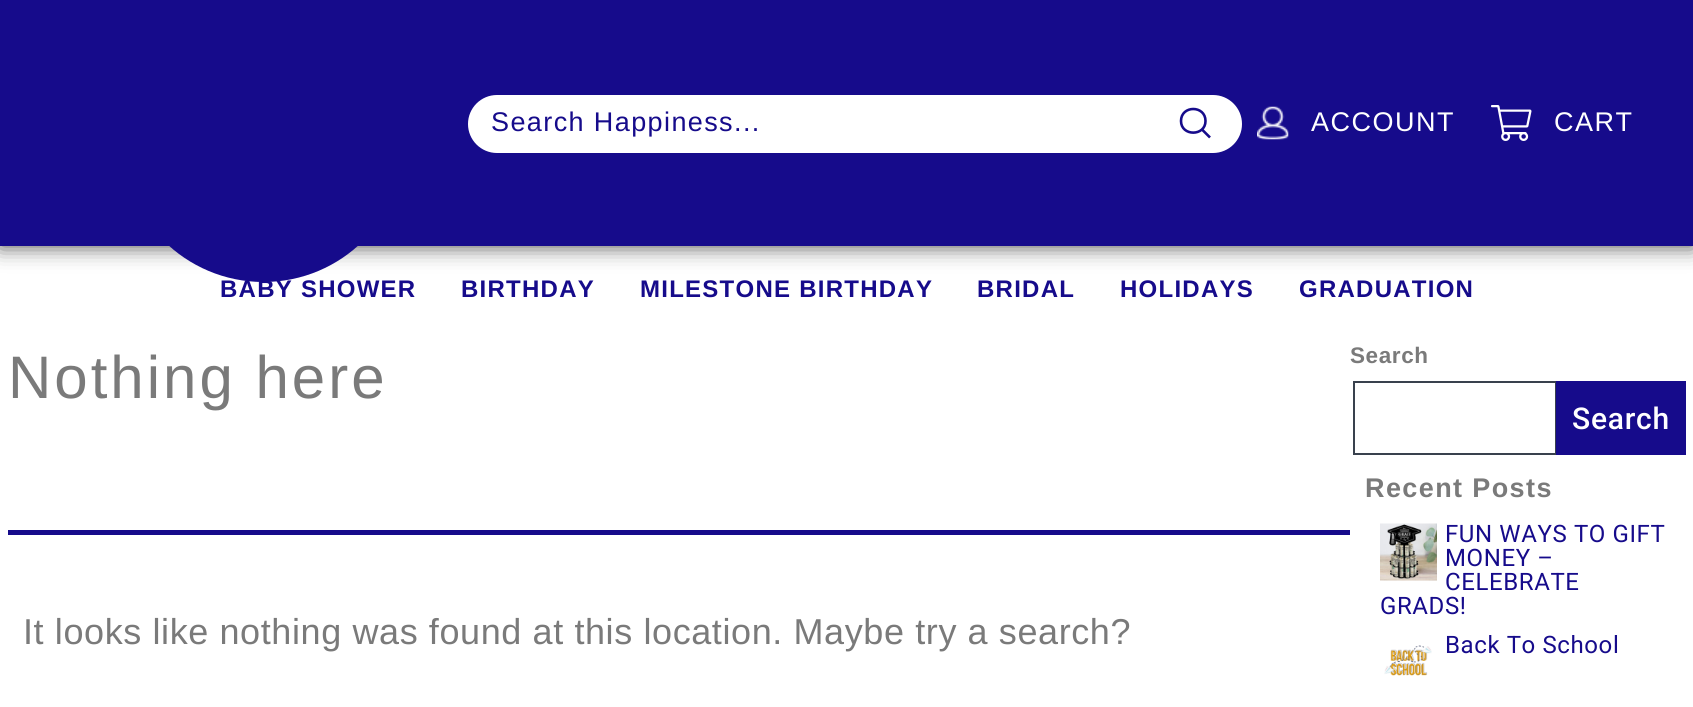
import math
import cairo

surface = cairo.ImageSurface(cairo.FORMAT_RGB24, 1693, 707)
cr = cairo.Context(surface)
options = cairo.FontOptions()
options.set_hint_metrics(cairo.HINT_METRICS_OFF)
options.set_hint_style(cairo.HINT_STYLE_NONE)
cr.set_font_options(options)
cr.set_miter_limit(4)


def rgb(code):
    cr.set_source_rgb(*(v / 255 for v in bytes.fromhex(code[-6:])))


def tracked(x, y, s, letter, word):
    cr.move_to(x, y)
    for ch in s:
        cr.show_text(ch)
        cr.rel_move_to(letter + word * (ch == ' '), 0)


def rrect(x, y, w, h, r):
    cr.new_sub_path()
    for i, (u, v) in enumerate([(x + w - r, y + h - r), (x + r, y + h - r), (x + r, y + r), (x + w - r, y + r)]):
        cr.arc(u, v, r, i * math.pi / 2, (i + 1) * math.pi / 2)
    cr.close_path()


def soft_shadow(x, y, w, h, r, blur, alpha):
    cr.push_group_with_content(cairo.CONTENT_ALPHA)
    cr.set_operator(cairo.OPERATOR_SOURCE)
    for i in range(15, -16, -2):
        e = blur * i / 6
        if min(w, h) + 2 * e > 0:
            cr.set_source_rgba(0, 0, 0, alpha * math.erfc((i - 1) / 8.5) / 2)
            rrect(x - e, y - e, w + 2 * e, h + 2 * e, max(0, min(r + e + blur * .6, min(w, h) / 2 + e)))
            cr.fill()
    cr.mask(cr.pop_group())


def image(path, x, y, w, h):
    cr.save()
    cr.set_source_surface(cairo.ImageSurface.create_from_png(path), x, y)
    cr.rectangle(x, y, w, h)
    cr.fill()
    cr.restore()


rgb("#ffffff")
cr.paint()
rgb("#070807")
soft_shadow(0, 0, 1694, 246, 0, 11, 0.74)
rgb("#160b8b")
cr.rectangle(0, 0, 1693, 246)
cr.fill()
cr.arc(263.5, 140.5, 141.5, 0, 2 * math.pi)
cr.fill()
rgb("#ffffff")
rrect(468, 95, 774, 58, 29)
cr.fill()
cr.new_path()
cr.move_to(1205.5, 121)
cr.curve_to(1205.5, 136.5, 1181, 136.5, 1181, 121)
cr.curve_to(1181, 105, 1205.5, 105, 1205.5, 121)
cr.close_path()
cr.move_to(1210, 137.5)
cr.line_to(1202, 129.5)
rgb("#160b8b")
cr.set_line_width(2.6)
cr.stroke()
image("img/1.png", 1257, 106, 32, 34)
image("img/2.png", 1491, 105, 41, 36)
cr.rectangle(8, 530, 1342, 5)
cr.fill()
cr.rectangle(1354, 382, 202, 72)
rgb("#39414d")
cr.set_line_width(2)
cr.stroke()
rgb("#160b8b")
cr.rectangle(1556, 381, 130, 74)
cr.fill()
image("img/3.png", 1380, 523, 57, 58)
image("img/4.png", 1384, 645, 48, 31)
cr.select_font_face("Liberation Sans")
cr.set_font_size(27)
tracked(491, 131, "Search Happiness...", 1.4, 0)
rgb("#ffffff")
tracked(1311, 131, "ACCOUNT", 1.5, 0)
tracked(1554, 131, "CART", 1.5, 0)
cr.select_font_face("Liberation Sans", cairo.FONT_SLANT_NORMAL, cairo.FONT_WEIGHT_BOLD)
cr.set_font_size(24)
rgb("#160b8b")
for x, y, s in [
    (220, 297, "BABY SHOWER"),
    (461, 297, "BIRTHDAY"),
    (640, 297, "MILESTONE BIRTHDAY"),
    (977, 297, "BRIDAL"),
    (1120, 297, "HOLIDAYS"),
    (1299, 297, "GRADUATION"),
]:
    tracked(x, y, s, 1.25, 0)
cr.select_font_face("Liberation Sans")
cr.set_font_size(60)
rgb("#7a7a7a")
tracked(8, 398, "Nothing here", 3, 0)
cr.set_font_size(36)
tracked(23, 644, "It looks like nothing was found at this location. Maybe try a search?", 0.6, 0)
cr.select_font_face("Liberation Sans", cairo.FONT_SLANT_NORMAL, cairo.FONT_WEIGHT_BOLD)
cr.set_font_size(22.5)
tracked(1350, 363, "Search", 0.6, 0)
cr.select_font_face("Roboto Medium")
cr.set_font_size(30)
rgb("#ffffff")
tracked(1572, 429, "Search", 0.75, 0)
cr.select_font_face("Liberation Sans", cairo.FONT_SLANT_NORMAL, cairo.FONT_WEIGHT_BOLD)
cr.set_font_size(27)
rgb("#7a7a7a")
tracked(1365, 497, "Recent Posts", 1.4, 0)
cr.select_font_face("Roboto")
cr.set_font_size(24)
rgb("#160b8b")
for x, y, s in [
    (1445, 542, "FUN WAYS TO GIFT"),
    (1445, 566, "MONEY –"),
    (1445, 590, "CELEBRATE"),
    (1380, 614, "GRADS!"),
    (1445, 653, "Back To School"),
]:
    tracked(x, y, s, 0.6, 0)
surface.write_to_png("page.png")
